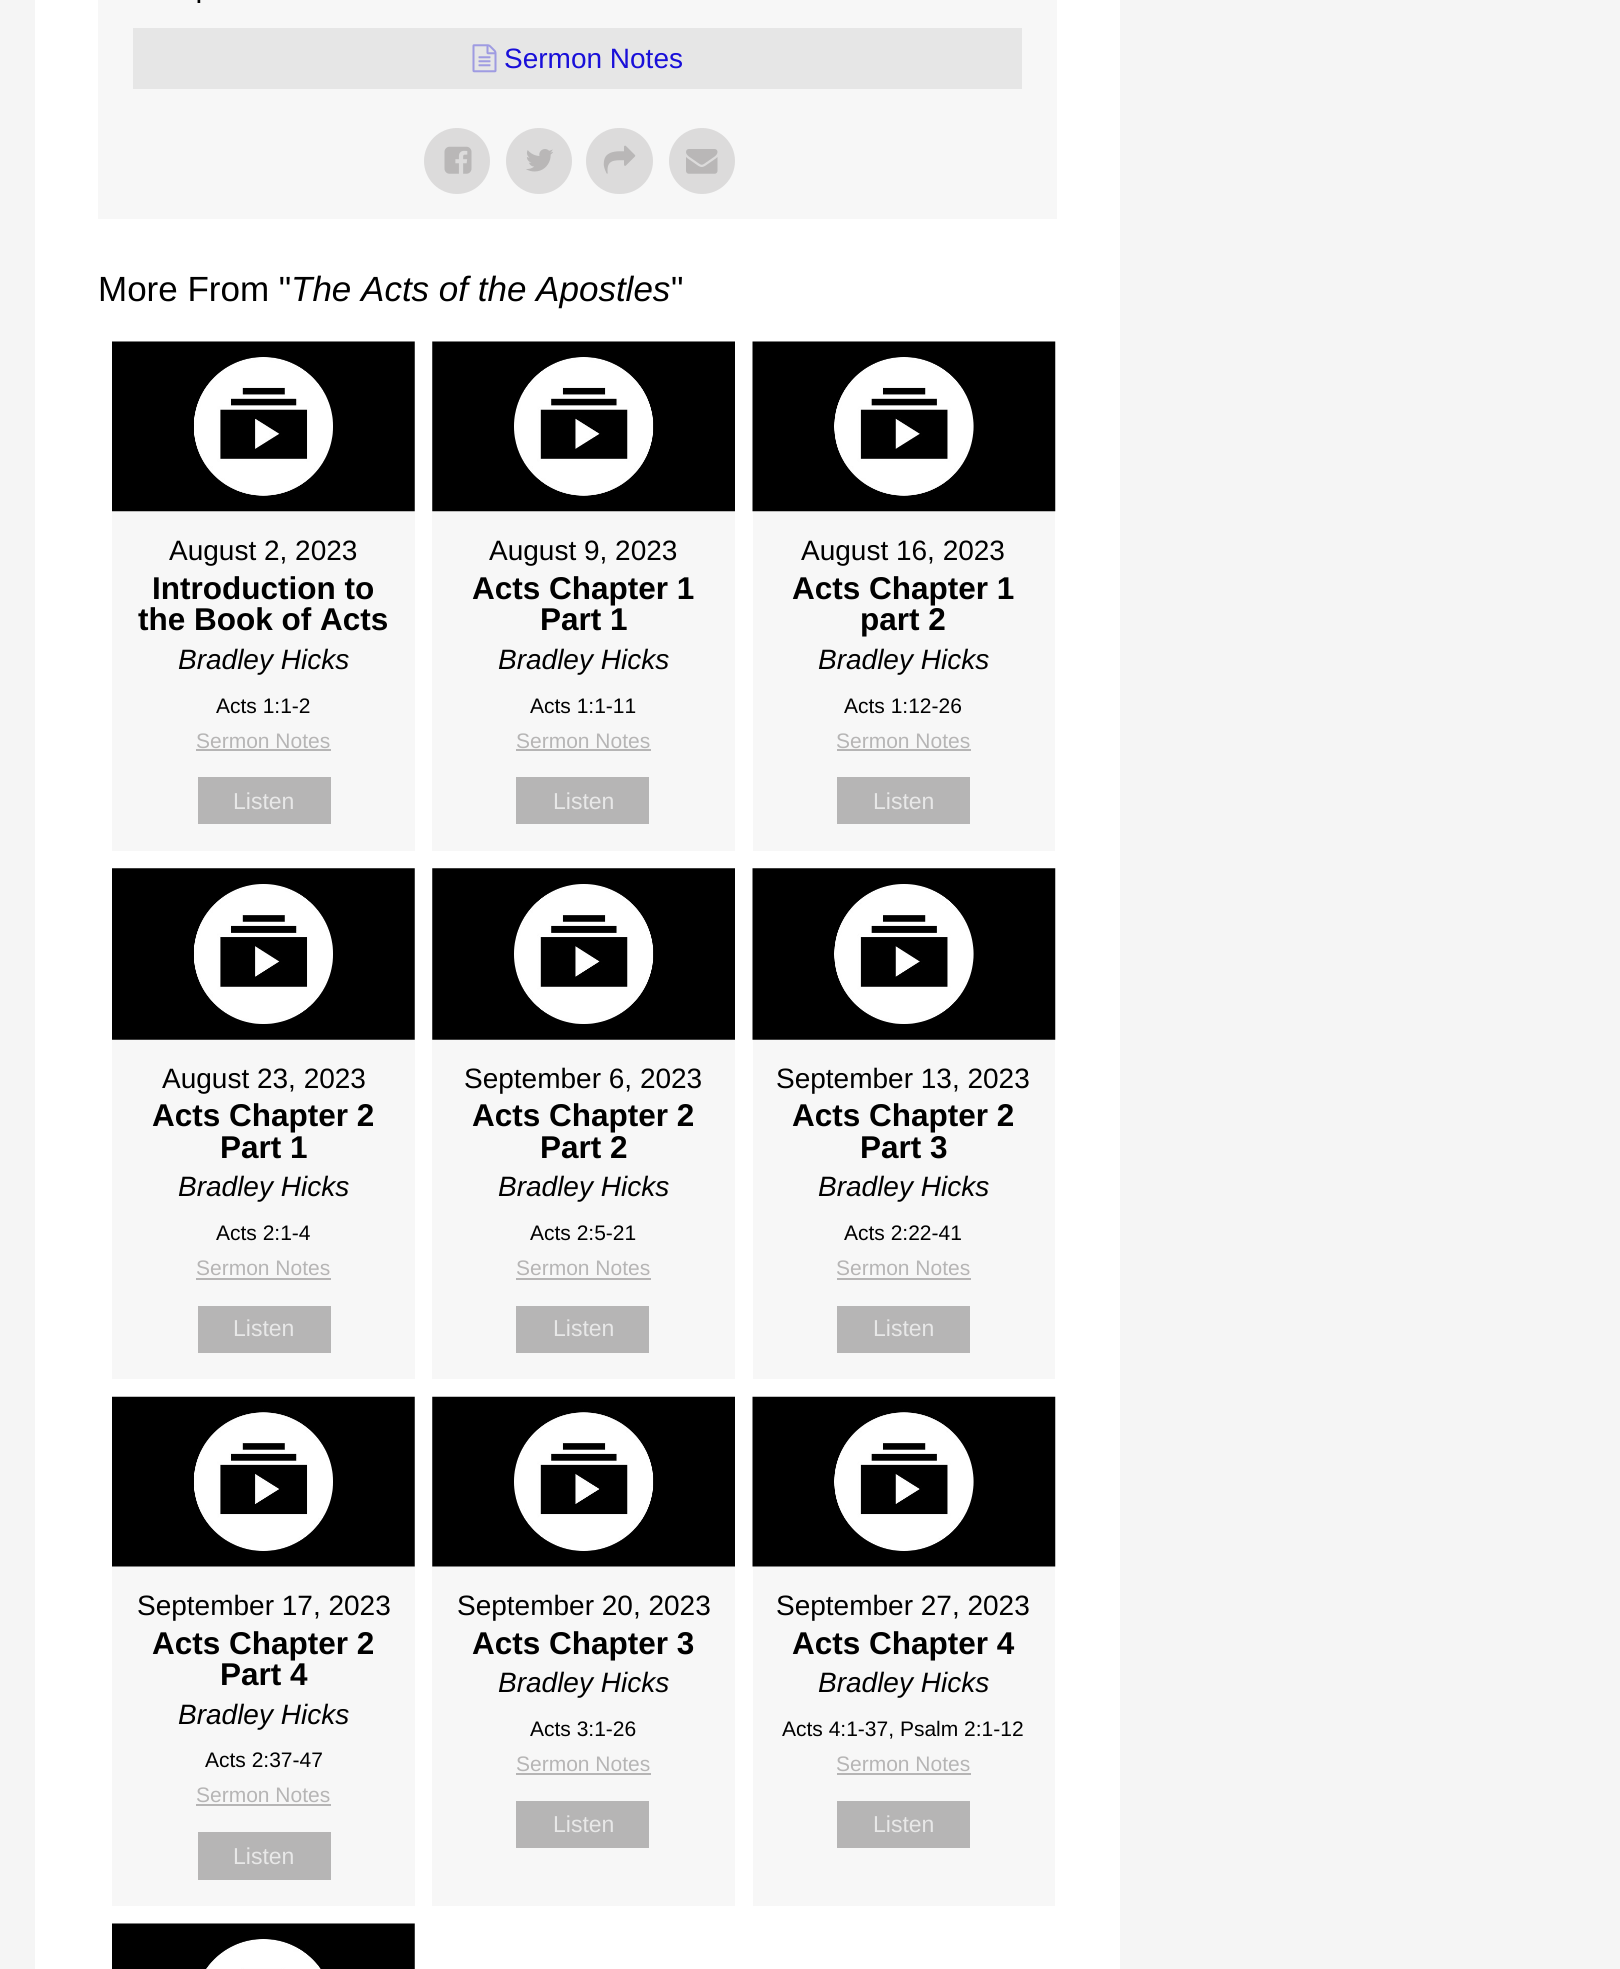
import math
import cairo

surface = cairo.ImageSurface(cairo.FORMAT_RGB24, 1620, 1969)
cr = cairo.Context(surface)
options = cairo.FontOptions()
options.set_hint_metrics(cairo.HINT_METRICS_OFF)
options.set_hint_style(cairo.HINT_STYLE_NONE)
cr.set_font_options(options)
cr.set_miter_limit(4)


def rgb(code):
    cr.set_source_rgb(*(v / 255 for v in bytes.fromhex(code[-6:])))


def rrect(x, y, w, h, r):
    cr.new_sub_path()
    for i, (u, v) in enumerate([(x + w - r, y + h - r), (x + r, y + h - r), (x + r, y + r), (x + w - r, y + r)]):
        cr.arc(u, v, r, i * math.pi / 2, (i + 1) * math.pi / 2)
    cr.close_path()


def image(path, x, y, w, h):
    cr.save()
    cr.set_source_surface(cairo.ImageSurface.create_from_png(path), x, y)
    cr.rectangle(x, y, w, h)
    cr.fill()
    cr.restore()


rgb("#f5f5f5")
cr.paint()
for x, y, w, h, color in [
    (35, 0, 1085, 1969, "#ffffff"),
    (98, 0, 959, 219, "#f7f7f7"),
    (133, 28, 889, 61, "#e6e6e6"),
]:
    rgb(color)
    cr.rectangle(x, y, w, h)
    cr.fill()
image("img/1.png", 472, 44, 25, 29)
rgb("#dcdbdb")
cr.arc(457, 161, 33, 0, 2 * math.pi)
cr.fill()
image("img/2.png", 444, 146, 28, 28)
cr.arc(539, 161, 33, 0, 2 * math.pi)
cr.fill()
image("img/3.png", 526, 149, 27, 23)
rrect(586, 128, 67, 66, 33)
cr.fill()
image("img/4.png", 603, 145, 33, 29)
cr.arc(702, 161, 33, 0, 2 * math.pi)
cr.fill()
image("img/5.png", 686, 149, 32, 25)
rgb("#f7f7f7")
cr.rectangle(112, 341, 303, 510)
cr.fill()
image("img/6.png", 112, 341, 303, 171)
for x, y, w, h, color in [
    (196, 749, 135, 2, "#b6b5b5"),
    (198, 777, 133, 47, "#b6b5b5"),
    (432, 341, 303, 510, "#f7f7f7"),
]:
    rgb(color)
    cr.rectangle(x, y, w, h)
    cr.fill()
image("img/7.png", 432, 341, 303, 171)
for x, y, w, h, color in [
    (516, 749, 135, 2, "#b6b5b5"),
    (516, 777, 133, 47, "#b6b5b5"),
    (753, 341, 302, 510, "#f7f7f7"),
]:
    rgb(color)
    cr.rectangle(x, y, w, h)
    cr.fill()
image("img/8.png", 752, 341, 304, 171)
for x, y, w, h, color in [
    (837, 749, 134, 2, "#b6b5b5"),
    (837, 777, 133, 47, "#b6b5b5"),
    (112, 868, 303, 511, "#f7f7f7"),
]:
    rgb(color)
    cr.rectangle(x, y, w, h)
    cr.fill()
image("img/9.png", 112, 868, 303, 172)
for x, y, w, h, color in [
    (196, 1278, 135, 2, "#b6b5b5"),
    (198, 1306, 133, 47, "#b6b5b5"),
    (432, 868, 303, 511, "#f7f7f7"),
]:
    rgb(color)
    cr.rectangle(x, y, w, h)
    cr.fill()
image("img/10.png", 432, 868, 303, 172)
for x, y, w, h, color in [
    (516, 1278, 135, 2, "#b6b5b5"),
    (516, 1306, 133, 47, "#b6b5b5"),
    (753, 868, 302, 511, "#f7f7f7"),
]:
    rgb(color)
    cr.rectangle(x, y, w, h)
    cr.fill()
image("img/11.png", 752, 868, 304, 172)
for x, y, w, h, color in [
    (837, 1278, 134, 2, "#b6b5b5"),
    (837, 1306, 133, 47, "#b6b5b5"),
    (112, 1397, 303, 509, "#f7f7f7"),
]:
    rgb(color)
    cr.rectangle(x, y, w, h)
    cr.fill()
image("img/12.png", 112, 1396, 303, 171)
for x, y, w, h, color in [
    (196, 1804, 135, 2, "#b6b5b5"),
    (198, 1832, 133, 48, "#b6b5b5"),
    (432, 1397, 303, 509, "#f7f7f7"),
]:
    rgb(color)
    cr.rectangle(x, y, w, h)
    cr.fill()
image("img/13.png", 432, 1396, 303, 171)
for x, y, w, h, color in [
    (516, 1773, 135, 2, "#b6b5b5"),
    (516, 1801, 133, 47, "#b6b5b5"),
    (753, 1566, 302, 340, "#f7f7f7"),
]:
    rgb(color)
    cr.rectangle(x, y, w, h)
    cr.fill()
image("img/14.png", 752, 1396, 304, 171)
for x, y, w, h, color in [
    (837, 1773, 134, 2, "#b6b5b5"),
    (837, 1801, 133, 47, "#b6b5b5"),
    (112, 1923, 303, 46, "#f7f7f7"),
]:
    rgb(color)
    cr.rectangle(x, y, w, h)
    cr.fill()
image("img/15.png", 112, 1923, 303, 46)
cr.select_font_face("Liberation Sans")
cr.set_font_size(28)
rgb("#000000")
cr.move_to(195, 3)
cr.show_text(".")
rgb("#190fd9")
cr.move_to(504, 68)
cr.show_text("Sermon Notes")
cr.set_font_size(35)
rgb("#000000")
cr.move_to(98, 301)
cr.show_text("More From \"")
cr.select_font_face("Liberation Sans", cairo.FONT_SLANT_ITALIC)
cr.move_to(291, 301)
cr.show_text("The Acts of the Apostles")
cr.select_font_face("Liberation Sans")
cr.move_to(671, 301)
cr.show_text("\"")
cr.set_font_size(28)
cr.move_to(169, 560)
cr.show_text("August 2, 2023")
cr.select_font_face("Liberation Sans", cairo.FONT_SLANT_NORMAL, cairo.FONT_WEIGHT_BOLD)
cr.set_font_size(31.5)
cr.move_to(152, 599)
cr.show_text("Introduction to")
cr.move_to(138, 630)
cr.show_text("the Book of Acts")
cr.select_font_face("Liberation Sans", cairo.FONT_SLANT_ITALIC)
cr.set_font_size(28)
cr.move_to(178, 669)
cr.show_text("Bradley Hicks")
cr.select_font_face("Liberation Sans")
cr.set_font_size(21)
cr.move_to(216, 713)
cr.show_text("Acts 1:1-2")
rgb("#b6b5b5")
cr.move_to(196, 748)
cr.show_text("Sermon Notes")
cr.set_font_size(23)
rgb("#e8e8e8")
cr.move_to(233, 809)
cr.show_text("Listen")
cr.set_font_size(28)
rgb("#000000")
cr.move_to(489, 560)
cr.show_text("August 9, 2023")
cr.select_font_face("Liberation Sans", cairo.FONT_SLANT_NORMAL, cairo.FONT_WEIGHT_BOLD)
cr.set_font_size(31.5)
cr.move_to(472, 599)
cr.show_text("Acts Chapter 1")
cr.move_to(540, 630)
cr.show_text("Part 1")
cr.select_font_face("Liberation Sans", cairo.FONT_SLANT_ITALIC)
cr.set_font_size(28)
cr.move_to(498, 669)
cr.show_text("Bradley Hicks")
cr.select_font_face("Liberation Sans")
cr.set_font_size(21)
cr.move_to(530, 713)
cr.show_text("Acts 1:1-11")
rgb("#b6b5b5")
cr.move_to(516, 748)
cr.show_text("Sermon Notes")
cr.set_font_size(23)
rgb("#e8e8e8")
cr.move_to(553, 809)
cr.show_text("Listen")
cr.set_font_size(28)
rgb("#000000")
cr.move_to(801, 560)
cr.show_text("August 16, 2023")
cr.select_font_face("Liberation Sans", cairo.FONT_SLANT_NORMAL, cairo.FONT_WEIGHT_BOLD)
cr.set_font_size(31.5)
cr.move_to(792, 599)
cr.show_text("Acts Chapter 1")
cr.move_to(860, 630)
cr.show_text("part 2")
cr.select_font_face("Liberation Sans", cairo.FONT_SLANT_ITALIC)
cr.set_font_size(28)
cr.move_to(818, 669)
cr.show_text("Bradley Hicks")
cr.select_font_face("Liberation Sans")
cr.set_font_size(21)
cr.move_to(844, 713)
cr.show_text("Acts 1:12-26")
rgb("#b6b5b5")
cr.move_to(836, 748)
cr.show_text("Sermon Notes")
cr.set_font_size(23)
rgb("#e8e8e8")
cr.move_to(873, 809)
cr.show_text("Listen")
cr.set_font_size(28)
rgb("#000000")
cr.move_to(162, 1088)
cr.show_text("August 23, 2023")
cr.select_font_face("Liberation Sans", cairo.FONT_SLANT_NORMAL, cairo.FONT_WEIGHT_BOLD)
cr.set_font_size(31.5)
cr.move_to(152, 1126)
cr.show_text("Acts Chapter 2")
cr.move_to(220, 1158)
cr.show_text("Part 1")
cr.select_font_face("Liberation Sans", cairo.FONT_SLANT_ITALIC)
cr.set_font_size(28)
cr.move_to(178, 1196)
cr.show_text("Bradley Hicks")
cr.select_font_face("Liberation Sans")
cr.set_font_size(21)
cr.move_to(216, 1240)
cr.show_text("Acts 2:1-4")
rgb("#b6b5b5")
cr.move_to(196, 1275)
cr.show_text("Sermon Notes")
cr.set_font_size(23)
rgb("#e8e8e8")
cr.move_to(233, 1336)
cr.show_text("Listen")
cr.set_font_size(28)
rgb("#000000")
cr.move_to(464, 1088)
cr.show_text("September 6, 2023")
cr.select_font_face("Liberation Sans", cairo.FONT_SLANT_NORMAL, cairo.FONT_WEIGHT_BOLD)
cr.set_font_size(31.5)
cr.move_to(472, 1126)
cr.show_text("Acts Chapter 2")
cr.move_to(540, 1158)
cr.show_text("Part 2")
cr.select_font_face("Liberation Sans", cairo.FONT_SLANT_ITALIC)
cr.set_font_size(28)
cr.move_to(498, 1196)
cr.show_text("Bradley Hicks")
cr.select_font_face("Liberation Sans")
cr.set_font_size(21)
cr.move_to(530, 1240)
cr.show_text("Acts 2:5-21")
rgb("#b6b5b5")
cr.move_to(516, 1275)
cr.show_text("Sermon Notes")
cr.set_font_size(23)
rgb("#e8e8e8")
cr.move_to(553, 1336)
cr.show_text("Listen")
cr.set_font_size(28)
rgb("#000000")
cr.move_to(776, 1088)
cr.show_text("September 13, 2023")
cr.select_font_face("Liberation Sans", cairo.FONT_SLANT_NORMAL, cairo.FONT_WEIGHT_BOLD)
cr.set_font_size(31.5)
cr.move_to(792, 1126)
cr.show_text("Acts Chapter 2")
cr.move_to(860, 1158)
cr.show_text("Part 3")
cr.select_font_face("Liberation Sans", cairo.FONT_SLANT_ITALIC)
cr.set_font_size(28)
cr.move_to(818, 1196)
cr.show_text("Bradley Hicks")
cr.select_font_face("Liberation Sans")
cr.set_font_size(21)
cr.move_to(844, 1240)
cr.show_text("Acts 2:22-41")
rgb("#b6b5b5")
cr.move_to(836, 1275)
cr.show_text("Sermon Notes")
cr.set_font_size(23)
rgb("#e8e8e8")
cr.move_to(873, 1336)
cr.show_text("Listen")
cr.set_font_size(28)
rgb("#000000")
cr.move_to(137, 1615)
cr.show_text("September 17, 2023")
cr.select_font_face("Liberation Sans", cairo.FONT_SLANT_NORMAL, cairo.FONT_WEIGHT_BOLD)
cr.set_font_size(31.5)
cr.move_to(152, 1654)
cr.show_text("Acts Chapter 2")
cr.move_to(220, 1685)
cr.show_text("Part 4")
cr.select_font_face("Liberation Sans", cairo.FONT_SLANT_ITALIC)
cr.set_font_size(28)
cr.move_to(178, 1724)
cr.show_text("Bradley Hicks")
cr.select_font_face("Liberation Sans")
cr.set_font_size(21)
cr.move_to(205, 1767)
cr.show_text("Acts 2:37-47")
rgb("#b6b5b5")
cr.move_to(196, 1802)
cr.show_text("Sermon Notes")
cr.set_font_size(23)
rgb("#e8e8e8")
cr.move_to(233, 1864)
cr.show_text("Listen")
cr.set_font_size(28)
rgb("#000000")
cr.move_to(457, 1615)
cr.show_text("September 20, 2023")
cr.select_font_face("Liberation Sans", cairo.FONT_SLANT_NORMAL, cairo.FONT_WEIGHT_BOLD)
cr.set_font_size(31.5)
cr.move_to(472, 1654)
cr.show_text("Acts Chapter 3")
cr.select_font_face("Liberation Sans", cairo.FONT_SLANT_ITALIC)
cr.set_font_size(28)
cr.move_to(498, 1692)
cr.show_text("Bradley Hicks")
cr.select_font_face("Liberation Sans")
cr.set_font_size(21)
cr.move_to(530, 1736)
cr.show_text("Acts 3:1-26")
rgb("#b6b5b5")
cr.move_to(516, 1771)
cr.show_text("Sermon Notes")
cr.set_font_size(23)
rgb("#e8e8e8")
cr.move_to(553, 1832)
cr.show_text("Listen")
cr.set_font_size(28)
rgb("#000000")
cr.move_to(776, 1615)
cr.show_text("September 27, 2023")
cr.select_font_face("Liberation Sans", cairo.FONT_SLANT_NORMAL, cairo.FONT_WEIGHT_BOLD)
cr.set_font_size(31.5)
cr.move_to(792, 1654)
cr.show_text("Acts Chapter 4")
cr.select_font_face("Liberation Sans", cairo.FONT_SLANT_ITALIC)
cr.set_font_size(28)
cr.move_to(818, 1692)
cr.show_text("Bradley Hicks")
cr.select_font_face("Liberation Sans")
cr.set_font_size(21)
cr.move_to(782, 1736)
cr.show_text("Acts 4:1-37, Psalm 2:1-12")
rgb("#b6b5b5")
cr.move_to(836, 1771)
cr.show_text("Sermon Notes")
cr.set_font_size(23)
rgb("#e8e8e8")
cr.move_to(873, 1832)
cr.show_text("Listen")
surface.write_to_png("page.png")
